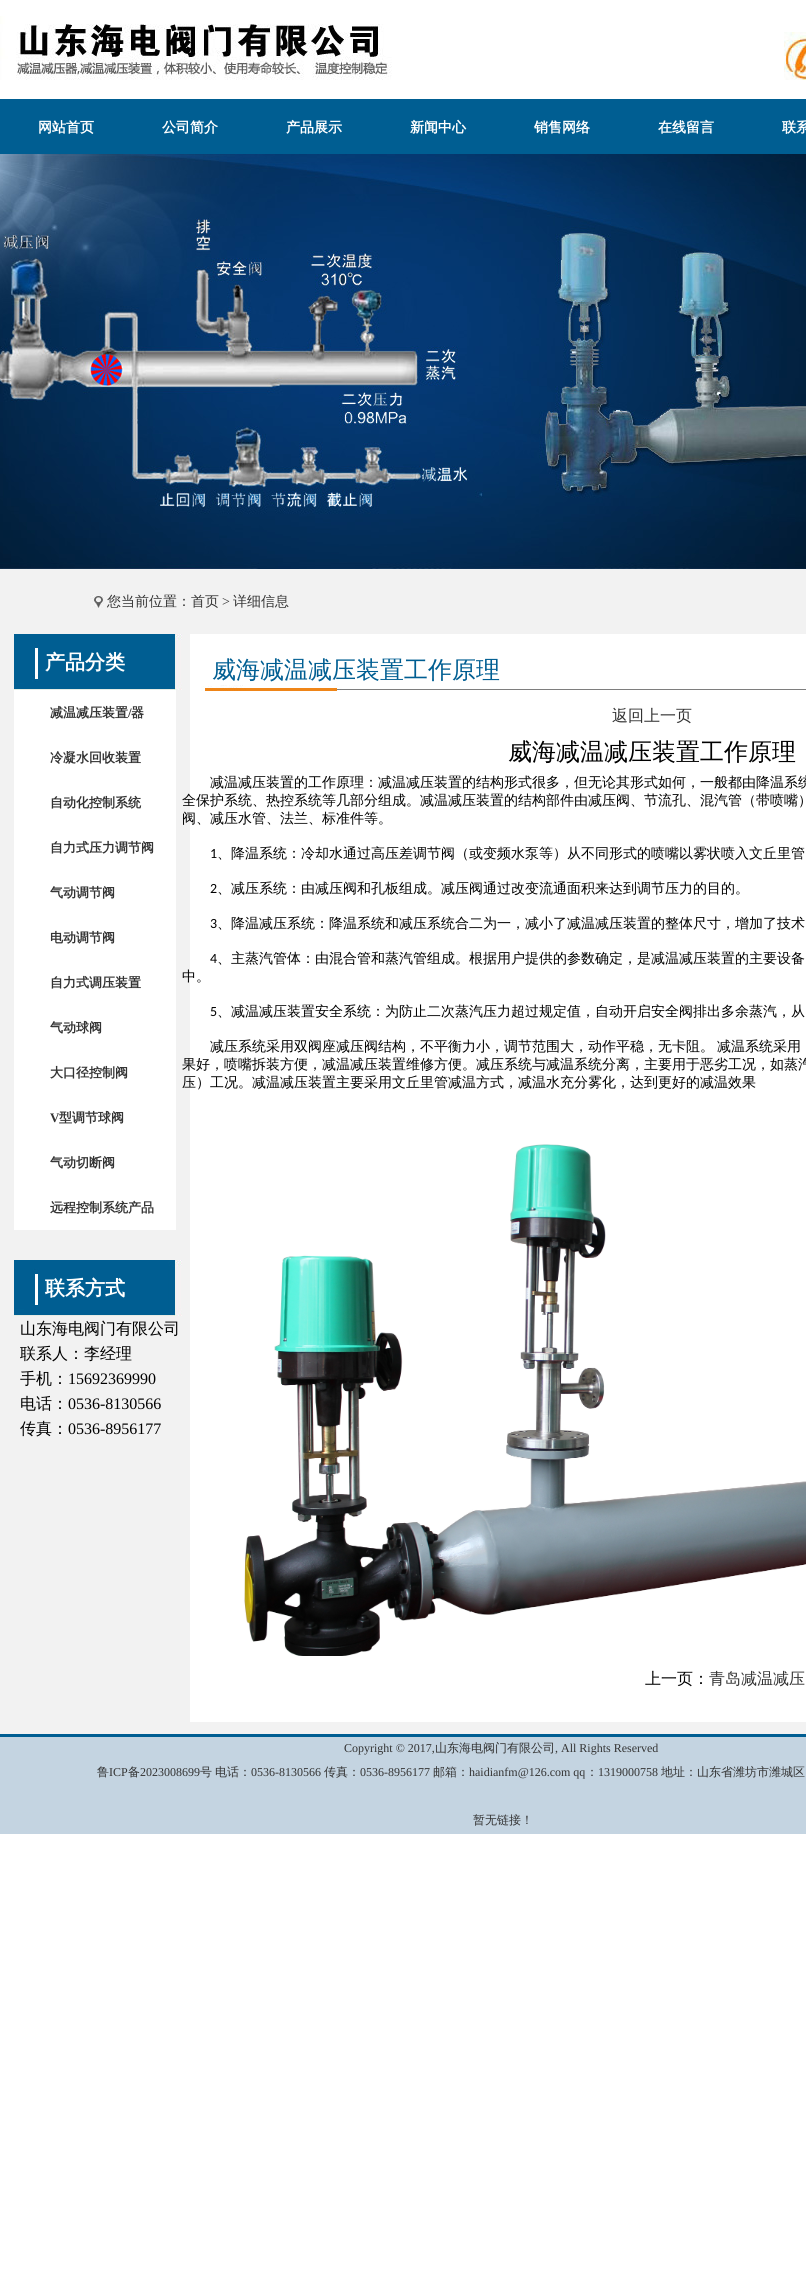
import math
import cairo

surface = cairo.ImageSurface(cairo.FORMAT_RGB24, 806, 2279)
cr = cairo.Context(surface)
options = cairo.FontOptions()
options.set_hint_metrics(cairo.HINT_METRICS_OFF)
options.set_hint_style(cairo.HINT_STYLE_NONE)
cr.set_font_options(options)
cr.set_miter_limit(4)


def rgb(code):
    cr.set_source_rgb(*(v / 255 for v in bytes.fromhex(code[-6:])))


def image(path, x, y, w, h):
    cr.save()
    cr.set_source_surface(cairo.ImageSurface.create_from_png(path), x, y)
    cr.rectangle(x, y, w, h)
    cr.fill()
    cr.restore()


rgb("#ffffff")
cr.paint()
image("img/1.png", 0, 16, 806, 64)
rgb("#005e92")
cr.rectangle(0, 99, 806, 55)
cr.fill()
image("img/2.png", 0, 154, 806, 415)
rgb("#f2f2f2")
cr.rectangle(0, 569, 806, 1165)
cr.fill()
image("img/3.png", 90, 595, 14, 13)
image("img/4.png", 12, 634, 170, 56)
rgb("#ffffff")
cr.rectangle(14, 690, 162, 540)
cr.fill()
image("img/4.png", 12, 1260, 170, 56)
cr.rectangle(190, 634, 616, 1088)
cr.fill()
image("img/5.png", 201, 685, 605, 6)
image("img/6.png", 244, 1144, 562, 512)
rgb("#c4d4e1")
cr.rectangle(0, 1737, 806, 97)
cr.fill()
rgb("#005e92")
cr.rectangle(0, 1734, 806, 3)
cr.fill()
cr.select_font_face("WenQuanYi Zen Hei", cairo.FONT_SLANT_NORMAL, cairo.FONT_WEIGHT_BOLD)
cr.set_font_size(14)
rgb("#ffffff")
for x, y, s in [
    (38, 132, "网站首页"),
    (162, 132, "公司简介"),
    (286, 132, "产品展示"),
    (410, 132, "新闻中心"),
    (534, 132, "销售网络"),
    (658, 132, "在线留言"),
    (782, 132, "联系"),
]:
    cr.move_to(x, y)
    cr.show_text(s)
cr.select_font_face("WenQuanYi Zen Hei Medium")
rgb("#333333")
cr.move_to(107, 606)
cr.show_text("您当前位置：首页")
cr.select_font_face("Liberation Serif")
cr.move_to(222, 606)
cr.show_text(">")
cr.select_font_face("WenQuanYi Zen Hei Medium")
cr.move_to(233, 606)
cr.show_text("详细信息")
cr.select_font_face("WenQuanYi Zen Hei", cairo.FONT_SLANT_NORMAL, cairo.FONT_WEIGHT_BOLD)
cr.set_font_size(20)
rgb("#ffffff")
cr.move_to(45, 669)
cr.show_text("产品分类")
cr.set_font_size(13)
rgb("#333333")
cr.move_to(50, 717)
cr.show_text("减温减压装置")
cr.select_font_face("Liberation Serif", cairo.FONT_SLANT_NORMAL, cairo.FONT_WEIGHT_BOLD)
cr.move_to(128, 717)
cr.show_text("/")
cr.select_font_face("WenQuanYi Zen Hei", cairo.FONT_SLANT_NORMAL, cairo.FONT_WEIGHT_BOLD)
for x, y, s in [
    (131, 717, "器"),
    (50, 762, "冷凝水回收装置"),
    (50, 807, "自动化控制系统"),
    (50, 852, "自力式压力调节阀"),
    (50, 897, "气动调节阀"),
    (50, 942, "电动调节阀"),
    (50, 987, "自力式调压装置"),
    (50, 1032, "气动球阀"),
    (50, 1077, "大口径控制阀"),
]:
    cr.move_to(x, y)
    cr.show_text(s)
cr.select_font_face("Liberation Serif", cairo.FONT_SLANT_NORMAL, cairo.FONT_WEIGHT_BOLD)
cr.move_to(50, 1122)
cr.show_text("V")
cr.select_font_face("WenQuanYi Zen Hei", cairo.FONT_SLANT_NORMAL, cairo.FONT_WEIGHT_BOLD)
for x, y, s in [
    (59, 1122, "型调节球阀"),
    (50, 1167, "气动切断阀"),
    (50, 1212, "远程控制系统产品"),
]:
    cr.move_to(x, y)
    cr.show_text(s)
cr.set_font_size(20)
rgb("#ffffff")
cr.move_to(45, 1295)
cr.show_text("联系方式")
cr.select_font_face("WenQuanYi Zen Hei Medium")
cr.set_font_size(16)
rgb("#000000")
for x, y, s in [
    (20, 1334, "山东海电阀门有限公司"),
    (20, 1359, "联系人：李经理"),
    (20, 1384, "手机："),
]:
    cr.move_to(x, y)
    cr.show_text(s)
cr.select_font_face("Liberation Serif")
cr.move_to(68, 1384)
cr.show_text("15692369990")
cr.select_font_face("WenQuanYi Zen Hei Medium")
cr.move_to(20, 1409)
cr.show_text("电话：")
cr.select_font_face("Liberation Serif")
cr.move_to(68, 1409)
cr.show_text("0536-8130566")
cr.select_font_face("WenQuanYi Zen Hei Medium")
cr.move_to(20, 1434)
cr.show_text("传真：")
cr.select_font_face("Liberation Serif")
cr.move_to(68, 1434)
cr.show_text("0536-8956177")
cr.select_font_face("WenQuanYi Zen Hei Medium")
cr.set_font_size(24)
rgb("#005e92")
cr.move_to(212, 678)
cr.show_text("威海减温减压装置工作原理")
cr.set_font_size(16)
rgb("#333333")
cr.move_to(612, 721)
cr.show_text("返回上一页")
cr.set_font_size(24)
rgb("#000000")
cr.move_to(508, 760)
cr.show_text("威海减温减压装置工作原理")
cr.set_font_size(14)
for x, y, s in [
    (210, 787, "减温减压装置的工作原理：减温减压装置的结构形式很多，但无论其形式如何，一般都由降温系统"),
    (182, 805, "全保护系统、热控系统等几部分组成。减温减压装置的结构部件由减压阀、节流孔、混汽管（带喷嘴）"),
    (182, 823, "阀、减压水管、法兰、标准件等。"),
]:
    cr.move_to(x, y)
    cr.show_text(s)
cr.select_font_face("Carlito")
cr.move_to(210, 858)
cr.show_text("1")
cr.select_font_face("WenQuanYi Zen Hei Medium")
cr.move_to(217, 858)
cr.show_text("、降温系统：冷却水通过高压差调节阀（或变频水泵等）从不同形式的喷嘴以雾状喷入文丘里管")
cr.select_font_face("Carlito")
cr.move_to(210, 893)
cr.show_text("2")
cr.select_font_face("WenQuanYi Zen Hei Medium")
cr.move_to(217, 893)
cr.show_text("、减压系统：由减压阀和孔板组成。减压阀通过改变流通面积来达到调节压力的目的。")
cr.select_font_face("Carlito")
cr.move_to(210, 928)
cr.show_text("3")
cr.select_font_face("WenQuanYi Zen Hei Medium")
cr.move_to(217, 928)
cr.show_text("、降温减压系统：降温系统和减压系统合二为一，减小了减温减压装置的整体尺寸，增加了技术")
cr.select_font_face("Carlito")
cr.move_to(210, 963)
cr.show_text("4")
cr.select_font_face("WenQuanYi Zen Hei Medium")
cr.move_to(217, 963)
cr.show_text("、主蒸汽管体：由混合管和蒸汽管组成。根据用户提供的参数确定，是减温减压装置的主要设备")
cr.move_to(182, 981)
cr.show_text("中。")
cr.select_font_face("Carlito")
cr.move_to(210, 1016)
cr.show_text("5")
cr.select_font_face("WenQuanYi Zen Hei Medium")
for x, y, s in [
    (217, 1016, "、减温减压装置安全系统：为防止二次蒸汽压力超过规定值，自动开启安全阀排出多余蒸汽，从"),
    (210, 1051, "减压系统采用双阀座减压阀结构，不平衡力小，调节范围大，动作平稳，无卡阻。"),
    (717, 1051, "减温系统采用"),
    (182, 1069, "果好，喷嘴拆装方便，减温减压装置维修方便。减压系统与减温系统分离，主要用于恶劣工况，如蒸汽"),
    (182, 1087, "压）工况。减温减压装置主要采用文丘里管减温方式，减温水充分雾化，达到更好的减温效果"),
]:
    cr.move_to(x, y)
    cr.show_text(s)
cr.set_font_size(16)
cr.move_to(645, 1684)
cr.show_text("上一页：")
rgb("#333333")
cr.move_to(709, 1684)
cr.show_text("青岛减温减压")
cr.select_font_face("Liberation Serif")
cr.set_font_size(12)
cr.move_to(344, 1752)
cr.show_text("Copyright © 2017,")
cr.select_font_face("WenQuanYi Zen Hei Medium")
cr.move_to(435, 1752)
cr.show_text("山东海电阀门有限公司")
cr.select_font_face("Liberation Serif")
cr.move_to(555, 1752)
cr.show_text(", All Rights Reserved")
cr.select_font_face("WenQuanYi Zen Hei Medium")
cr.move_to(97, 1776)
cr.show_text("鲁")
cr.select_font_face("Liberation Serif")
cr.move_to(109, 1776)
cr.show_text("ICP")
cr.select_font_face("WenQuanYi Zen Hei Medium")
cr.move_to(128, 1776)
cr.show_text("备")
cr.select_font_face("Liberation Serif")
cr.move_to(140, 1776)
cr.show_text("2023008699")
cr.select_font_face("WenQuanYi Zen Hei Medium")
cr.move_to(200, 1776)
cr.show_text("号")
cr.move_to(215, 1776)
cr.show_text("电话：")
cr.select_font_face("Liberation Serif")
cr.move_to(251, 1776)
cr.show_text("0536-8130566")
cr.select_font_face("WenQuanYi Zen Hei Medium")
cr.move_to(324, 1776)
cr.show_text("传真：")
cr.select_font_face("Liberation Serif")
cr.move_to(360, 1776)
cr.show_text("0536-8956177")
cr.select_font_face("WenQuanYi Zen Hei Medium")
cr.move_to(433, 1776)
cr.show_text("邮箱：")
cr.select_font_face("Liberation Serif")
cr.move_to(469, 1776)
cr.show_text("haidianfm@126.com qq")
cr.select_font_face("WenQuanYi Zen Hei Medium")
cr.move_to(586, 1776)
cr.show_text("：")
cr.select_font_face("Liberation Serif")
cr.move_to(598, 1776)
cr.show_text("1319000758")
cr.select_font_face("WenQuanYi Zen Hei Medium")
cr.move_to(661, 1776)
cr.show_text("地址：山东省潍坊市潍城区")
cr.move_to(473, 1824)
cr.show_text("暂无链接！")
surface.write_to_png("page.png")
